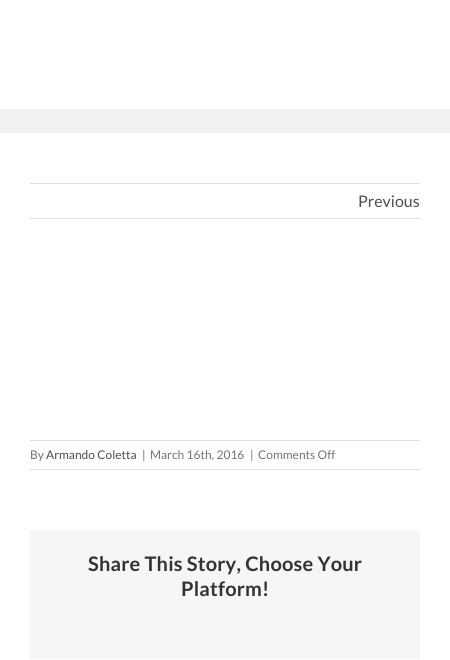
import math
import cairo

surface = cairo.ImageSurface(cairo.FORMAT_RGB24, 450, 660)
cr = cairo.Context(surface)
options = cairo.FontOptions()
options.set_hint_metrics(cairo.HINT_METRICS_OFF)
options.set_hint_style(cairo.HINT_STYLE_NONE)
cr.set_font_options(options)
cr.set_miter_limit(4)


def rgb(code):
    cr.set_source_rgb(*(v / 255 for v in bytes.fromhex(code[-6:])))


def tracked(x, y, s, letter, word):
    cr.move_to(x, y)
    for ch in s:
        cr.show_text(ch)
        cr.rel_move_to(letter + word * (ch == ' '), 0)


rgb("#ffffff")
cr.paint()
for x, y, w, h, color in [
    (0, 109, 450, 24, "#f1f1f1"),
    (30, 183, 390, 1, "#e0dede"),
    (30, 218, 390, 1, "#e0dede"),
    (30, 440, 390, 1, "#e0dede"),
    (30, 469, 390, 1, "#e0dede"),
    (30, 530, 390, 129, "#f6f6f6"),
]:
    rgb(color)
    cr.rectangle(x, y, w, h)
    cr.fill()
cr.select_font_face("Lato")
cr.set_font_size(16)
rgb("#4d4d4d")
cr.move_to(358, 207)
cr.show_text("Previous")
cr.set_font_size(12)
rgb("#747474")
cr.move_to(30, 459)
cr.show_text("By")
rgb("#4d4d4d")
cr.move_to(46, 459)
cr.show_text("Armando Coletta")
rgb("#747474")
for x, y, s in [
    (142, 459, "|"),
    (150, 459, "March 16th, 2016"),
    (250, 459, "|"),
    (258, 459, "Comments Off"),
]:
    cr.move_to(x, y)
    cr.show_text(s)
cr.select_font_face("Lato", cairo.FONT_SLANT_NORMAL, cairo.FONT_WEIGHT_BOLD)
cr.set_font_size(20)
rgb("#333333")
tracked(88, 571, "Share This Story, Choose Your", 0.2, 0)
tracked(181, 596, "Platform!", 0.2, 0)
surface.write_to_png("page.png")
